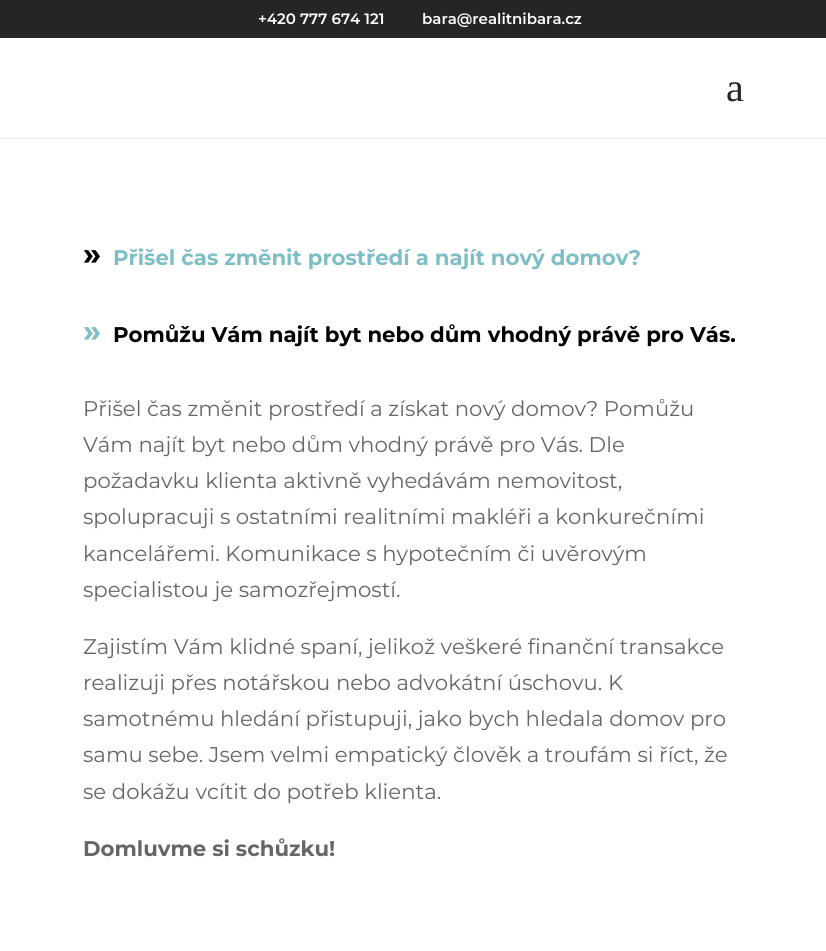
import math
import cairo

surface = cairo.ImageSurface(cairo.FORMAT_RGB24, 826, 951)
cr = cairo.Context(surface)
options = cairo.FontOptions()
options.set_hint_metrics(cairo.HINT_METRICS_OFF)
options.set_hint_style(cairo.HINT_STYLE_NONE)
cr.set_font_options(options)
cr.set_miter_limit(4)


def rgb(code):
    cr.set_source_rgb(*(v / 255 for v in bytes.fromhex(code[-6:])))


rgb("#ffffff")
cr.paint()
rgb("#252525")
cr.rectangle(0, 0, 826, 38)
cr.fill()
rgb("#e6e6e6")
cr.rectangle(0, 138, 826, 1)
cr.fill()
cr.select_font_face("Montserrat SemiBold")
cr.set_font_size(15)
rgb("#ffffff")
cr.move_to(258, 24)
cr.show_text("+420 777 674 121")
cr.move_to(422, 24)
cr.show_text("bara@realitnibara.cz")
cr.select_font_face("Liberation Serif")
cr.set_font_size(40)
rgb("#252525")
cr.move_to(726, 101)
cr.show_text("a")
cr.select_font_face("Montserrat", cairo.FONT_SLANT_NORMAL, cairo.FONT_WEIGHT_BOLD)
cr.set_font_size(32)
rgb("#000000")
cr.move_to(83, 265)
cr.show_text("»")
cr.set_font_size(21.25)
rgb("#7ebec5")
cr.move_to(113, 265)
cr.show_text("Přišel čas změnit prostředí a najít nový domov?")
cr.set_font_size(32)
cr.move_to(83, 342)
cr.show_text("»")
cr.set_font_size(21.25)
rgb("#000000")
cr.move_to(113, 342)
cr.show_text("Pomůžu Vám najít byt nebo dům vhodný právě pro Vás.")
cr.select_font_face("Montserrat")
rgb("#666666")
for x, y, s in [
    (83, 416, "Přišel čas změnit prostředí a získat nový domov? Pomůžu"),
    (83, 452, "Vám najít byt nebo dům vhodný právě pro Vás. Dle"),
    (83, 488, "požadavku klienta aktivně vyhedávám nemovitost,"),
    (83, 524, "spolupracuji s ostatními realitními makléři a konkurečními"),
    (83, 561, "kancelářemi. Komunikace s hypotečním či uvěrovým"),
    (83, 597, "specialistou je samozřejmostí."),
    (83, 654, "Zajistím Vám klidné spaní, jelikož veškeré finanční transakce"),
    (83, 690, "realizuji přes notářskou nebo advokátní úschovu. K"),
    (83, 726, "samotnému hledání přistupuji, jako bych hledala domov pro"),
    (83, 762, "samu sebe. Jsem velmi empatický člověk a troufám si říct, že"),
    (83, 799, "se dokážu vcítit do potřeb klienta."),
]:
    cr.move_to(x, y)
    cr.show_text(s)
cr.select_font_face("Montserrat", cairo.FONT_SLANT_NORMAL, cairo.FONT_WEIGHT_BOLD)
cr.move_to(83, 856)
cr.show_text("Domluvme si schůzku!")
surface.write_to_png("page.png")
